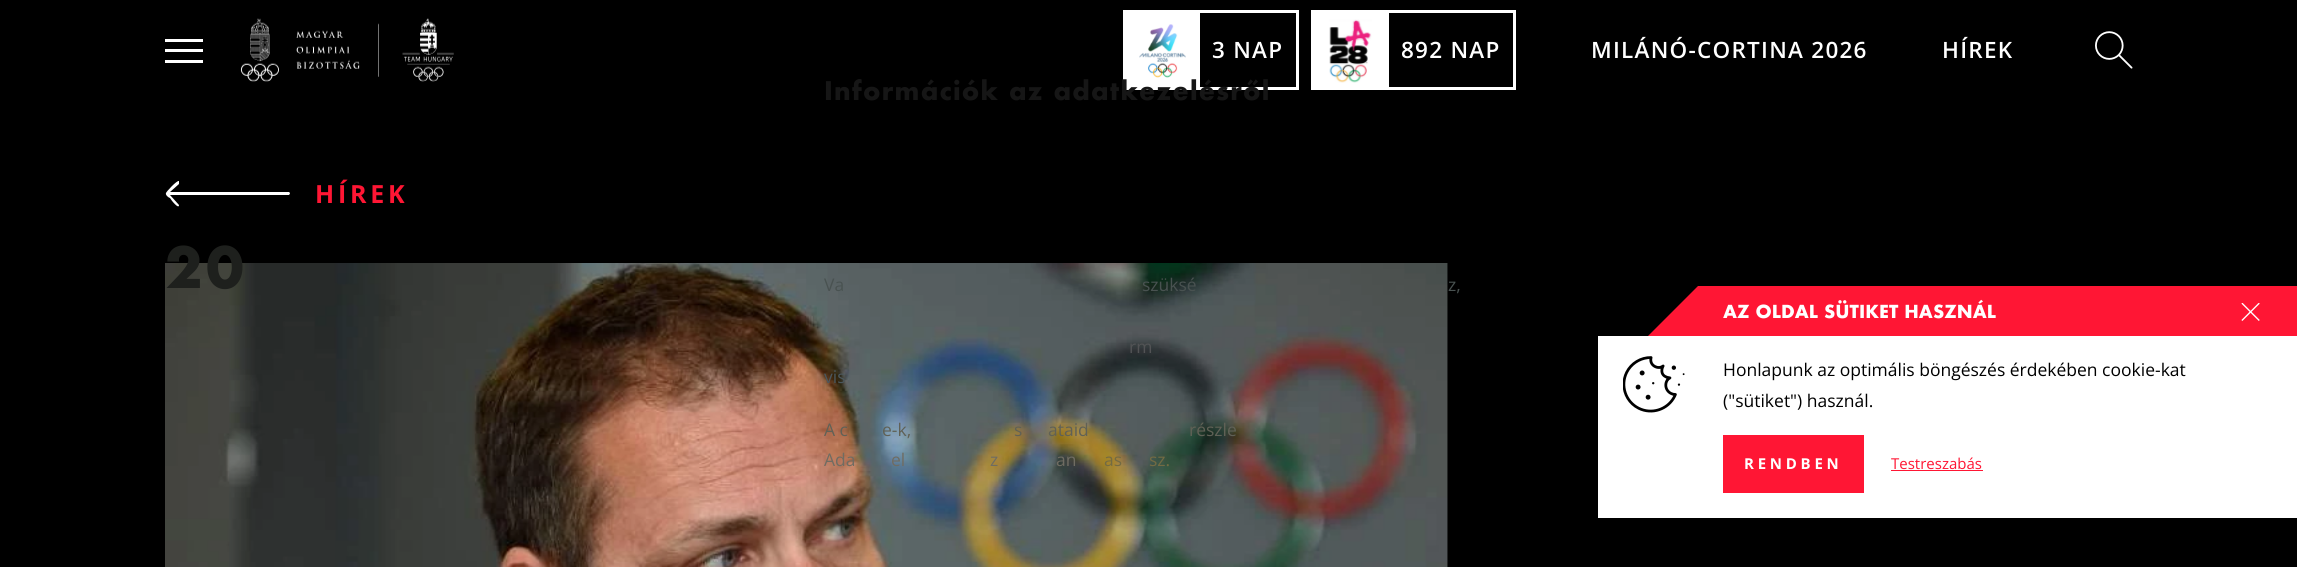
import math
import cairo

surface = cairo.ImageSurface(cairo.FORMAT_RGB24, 2297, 567)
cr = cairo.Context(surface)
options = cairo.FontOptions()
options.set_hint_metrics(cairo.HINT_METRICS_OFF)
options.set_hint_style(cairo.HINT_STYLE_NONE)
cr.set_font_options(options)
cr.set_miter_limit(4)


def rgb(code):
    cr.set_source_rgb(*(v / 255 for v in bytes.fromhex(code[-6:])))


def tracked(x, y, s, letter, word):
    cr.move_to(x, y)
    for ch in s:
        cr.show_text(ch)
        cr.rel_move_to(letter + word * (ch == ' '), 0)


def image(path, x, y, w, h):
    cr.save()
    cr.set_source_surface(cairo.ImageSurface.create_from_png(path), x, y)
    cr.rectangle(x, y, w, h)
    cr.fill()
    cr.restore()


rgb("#000000")
cr.paint()
for x, y, w, h, color in [
    (165, 39, 38, 3, "#ffffff"),
    (165, 49, 38, 3, "#ffffff"),
    (165, 60, 38, 3, "#ffffff"),
]:
    rgb(color)
    cr.rectangle(x, y, w, h)
    cr.fill()
image("img/1.png", 240, 18, 214, 64)
cr.rectangle(1124.5, 11.5, 173, 77)
cr.set_line_width(3)
cr.stroke()
cr.rectangle(1126, 13, 74, 74)
cr.fill()
image("img/2.png", 1139, 24, 47, 54)
cr.rectangle(1312.5, 11.5, 202, 77)
cr.stroke()
cr.rectangle(1314, 13, 75, 74)
cr.fill()
image("img/3.png", 1329, 19, 43, 64)
image("img/4.png", 2095, 31, 38, 38)
cr.new_path()
cr.move_to(166, 193)
cr.curve_to(165, 195, 169, 198, 170, 198)
cr.curve_to(171, 200, 179, 210, 179, 205)
cr.line_to(170, 195)
cr.line_to(289, 195)
cr.curve_to(289, 195, 290, 194, 290, 193)
cr.line_to(289, 192)
cr.line_to(170, 192)
cr.line_to(179, 184)
cr.curve_to(179, 183, 179, 182, 179, 181)
cr.curve_to(177, 180, 166, 192, 166, 193)
cr.close_path()
cr.fill()
image("img/5.png", 165, 263, 1283, 304)
rgb("#ff1634")
cr.new_path()
cr.move_to(1698, 286)
cr.line_to(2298, 286)
cr.line_to(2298, 336)
cr.line_to(1648, 336)
cr.close_path()
cr.fill()
image("img/6.png", 2241, 303, 19, 18)
rgb("#ffffff")
cr.rectangle(1598, 336, 699, 182)
cr.fill()
image("img/7.png", 1623, 356, 62, 57)
rgb("#ff1634")
cr.rectangle(1723, 435, 141, 58)
cr.fill()
cr.rectangle(1891, 470, 92, 1)
cr.fill()
cr.select_font_face("Open Sans SemiBold")
cr.set_font_size(22.5)
rgb("#ffffff")
for x, y, s in [
    (1212, 58, "3 NAP"),
    (1401, 58, "892 NAP"),
    (1591, 58, "MILÁNÓ-CORTINA 2026"),
    (1942, 58, "HÍREK"),
]:
    tracked(x, y, s, 1.25, 0)
cr.select_font_face("Open Sans", cairo.FONT_SLANT_NORMAL, cairo.FONT_WEIGHT_BOLD)
cr.set_font_size(25)
rgb("#ff1634")
tracked(315, 203, "HÍREK", 3.75, 0)
cr.select_font_face("Futura", cairo.FONT_SLANT_NORMAL, cairo.FONT_WEIGHT_BOLD)
rgb("#161616")
tracked(824, 100, "Információk az adatkezelésről", 1.25, 0)
cr.select_font_face("Open Sans")
cr.set_font_size(17.5)
rgb("#495251")
for x, y, s in [
    (824, 291, "Va"),
    (1142, 291, "szüksé"),
    (1448, 291, "z,"),
]:
    cr.move_to(x, y)
    cr.show_text(s)
rgb("#525355")
cr.move_to(1129, 353)
cr.show_text("rm")
rgb("#4b575d")
cr.move_to(824, 383)
cr.show_text("vis")
rgb("#606156")
for x, y, s in [
    (824, 436, "A c"),
    (882, 436, "e-k,"),
    (1014, 436, "s"),
    (1048, 436, "ataid"),
    (1189, 436, "részle"),
]:
    cr.move_to(x, y)
    cr.show_text(s)
rgb("#6f6c62")
for x, y, s in [
    (824, 466, "Ada"),
    (891, 466, "el"),
    (990, 466, "z"),
    (1056, 466, "an"),
]:
    cr.move_to(x, y)
    cr.show_text(s)
rgb("#736b43")
cr.move_to(1104, 466)
cr.show_text("as")
cr.move_to(1149, 466)
cr.show_text("sz.")
cr.select_font_face("Futura", cairo.FONT_SLANT_NORMAL, cairo.FONT_WEIGHT_BOLD)
cr.set_font_size(55)
rgb("#1e201d")
tracked(165, 288, "20", 3.75, 0)
cr.set_font_size(17.5)
rgb("#ffffff")
cr.move_to(1723, 318)
cr.show_text("AZ OLDAL SÜTIKET HASZNÁL")
cr.select_font_face("Open Sans")
rgb("#000000")
cr.move_to(1723, 376)
cr.show_text("Honlapunk az optimális böngészés érdekében cookie-kat")
cr.move_to(1723, 407)
cr.show_text("(\"sütiket\") használ.")
cr.select_font_face("Open Sans", cairo.FONT_SLANT_NORMAL, cairo.FONT_WEIGHT_BOLD)
cr.set_font_size(15)
rgb("#ffffff")
tracked(1744, 469, "RENDBEN", 3.75, 0)
cr.select_font_face("Open Sans")
rgb("#ff1634")
cr.move_to(1891, 469)
cr.show_text("Testreszabás")
surface.write_to_png("page.png")
